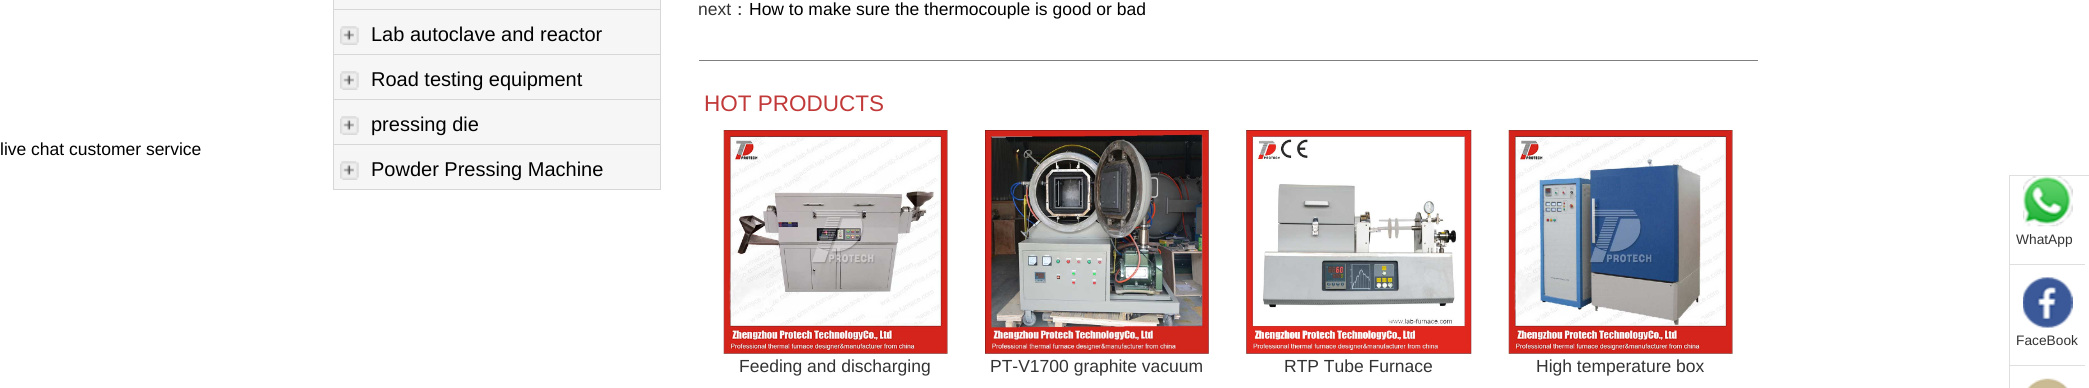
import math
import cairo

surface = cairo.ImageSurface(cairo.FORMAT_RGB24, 2089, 388)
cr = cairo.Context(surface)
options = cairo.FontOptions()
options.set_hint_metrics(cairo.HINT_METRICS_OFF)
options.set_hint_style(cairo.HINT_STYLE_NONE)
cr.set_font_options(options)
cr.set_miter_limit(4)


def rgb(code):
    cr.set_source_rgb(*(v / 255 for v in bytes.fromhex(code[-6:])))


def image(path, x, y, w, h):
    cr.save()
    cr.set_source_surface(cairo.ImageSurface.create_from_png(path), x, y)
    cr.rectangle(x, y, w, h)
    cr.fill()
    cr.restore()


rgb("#ffffff")
cr.paint()
for x, y, w, h, color in [
    (334, 0, 326, 189, "#f7f6f7"),
    (660, 0, 1, 190, "#d7d7d7"),
    (333, 9, 328, 1, "#d7d7d7"),
    (333, 0, 1, 10, "#d7d7d7"),
    (333, 54, 328, 1, "#d7d7d7"),
    (333, 10, 1, 45, "#d7d7d7"),
]:
    rgb(color)
    cr.rectangle(x, y, w, h)
    cr.fill()
image("img/1.png", 340, 26, 19, 19)
cr.rectangle(333, 99, 328, 1)
cr.fill()
cr.rectangle(333, 55, 1, 45)
cr.fill()
image("img/1.png", 340, 71, 19, 19)
cr.rectangle(333, 144, 328, 1)
cr.fill()
cr.rectangle(333, 100, 1, 45)
cr.fill()
image("img/1.png", 340, 116, 19, 19)
cr.rectangle(333, 189, 328, 1)
cr.fill()
cr.rectangle(333, 145, 1, 45)
cr.fill()
image("img/1.png", 340, 161, 19, 19)
rgb("#808080")
cr.rectangle(699, 60, 1059, 1)
cr.fill()
image("img/2.png", 723, 130, 225, 224)
image("img/3.png", 985, 130, 224, 224)
image("img/4.png", 1246, 130, 226, 224)
image("img/5.png", 1508, 130, 225, 224)
cr.rectangle(2009.5, 175.5, 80, 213)
rgb("#dfdfdf")
cr.set_line_width(1)
cr.stroke()
image("img/6.png", 2023, 176, 50, 51)
cr.rectangle(2010, 264, 75, 1)
cr.fill()
image("img/7.png", 2023, 277, 50, 51)
cr.rectangle(2010, 365, 75, 1)
cr.fill()
image("img/8.png", 2027, 378, 41, 10)
cr.select_font_face("Liberation Sans")
cr.set_font_size(17.5)
rgb("#000000")
cr.move_to(0, 155)
cr.show_text("live chat customer service")
cr.set_font_size(20)
for x, y, s in [
    (371, 41, "Lab autoclave and reactor"),
    (371, 86, "Road testing equipment"),
    (371, 131, "pressing die"),
    (371, 176, "Powder Pressing Machine"),
]:
    cr.move_to(x, y)
    cr.show_text(s)
cr.set_font_size(17.5)
rgb("#333333")
cr.move_to(698, 15)
cr.show_text("next")
cr.select_font_face("WenQuanYi Zen Hei Medium")
cr.move_to(731, 15)
cr.show_text("：")
cr.select_font_face("Liberation Sans")
rgb("#000000")
cr.move_to(749, 15)
cr.show_text("How to make sure the thermocouple is good or bad")
cr.set_font_size(22.5)
rgb("#c13939")
cr.move_to(704, 111)
cr.show_text("HOT PRODUCTS")
cr.set_font_size(17.5)
rgb("#333333")
for x, y, s in [
    (739, 372, "Feeding and discharging"),
    (990, 372, "PT-V1700 graphite vacuum"),
    (1284, 372, "RTP Tube Furnace"),
    (1536, 372, "High temperature box"),
]:
    cr.move_to(x, y)
    cr.show_text(s)
cr.set_font_size(13.75)
cr.move_to(2016, 244)
cr.show_text("WhatApp")
cr.move_to(2016, 345)
cr.show_text("FaceBook")
surface.write_to_png("page.png")
